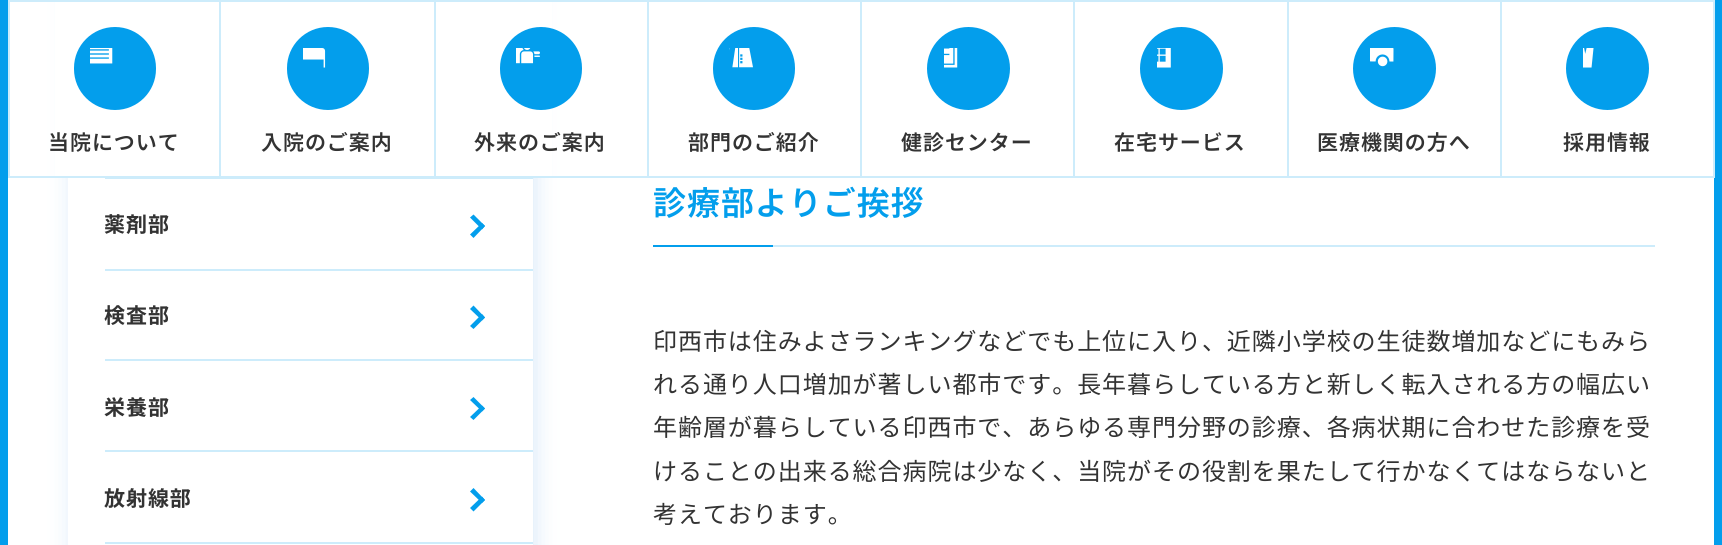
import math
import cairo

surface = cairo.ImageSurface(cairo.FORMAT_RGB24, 1722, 545)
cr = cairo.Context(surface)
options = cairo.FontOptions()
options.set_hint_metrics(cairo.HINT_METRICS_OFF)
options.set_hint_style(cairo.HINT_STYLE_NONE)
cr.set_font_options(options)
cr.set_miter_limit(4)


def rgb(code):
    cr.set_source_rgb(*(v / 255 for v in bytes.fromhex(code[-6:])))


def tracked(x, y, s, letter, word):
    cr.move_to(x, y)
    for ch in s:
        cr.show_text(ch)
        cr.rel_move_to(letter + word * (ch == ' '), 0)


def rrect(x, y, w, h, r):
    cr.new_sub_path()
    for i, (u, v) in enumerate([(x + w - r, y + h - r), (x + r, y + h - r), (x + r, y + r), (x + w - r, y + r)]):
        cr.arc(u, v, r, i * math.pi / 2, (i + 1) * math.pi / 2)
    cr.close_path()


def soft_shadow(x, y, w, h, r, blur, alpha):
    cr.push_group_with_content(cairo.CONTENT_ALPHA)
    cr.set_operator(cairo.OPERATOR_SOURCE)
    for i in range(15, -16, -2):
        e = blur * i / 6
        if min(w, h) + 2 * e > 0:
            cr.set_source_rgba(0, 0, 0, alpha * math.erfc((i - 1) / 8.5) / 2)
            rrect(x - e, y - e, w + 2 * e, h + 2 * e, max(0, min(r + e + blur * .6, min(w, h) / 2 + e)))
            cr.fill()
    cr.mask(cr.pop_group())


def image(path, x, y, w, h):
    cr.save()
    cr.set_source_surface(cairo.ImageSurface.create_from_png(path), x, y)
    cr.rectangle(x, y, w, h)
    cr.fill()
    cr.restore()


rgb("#ffffff")
cr.paint()
cr.rectangle(4, -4, 1714, 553)
rgb("#039eec")
cr.set_line_width(8)
cr.stroke()
cr.save()
cr.set_fill_rule(cairo.FILL_RULE_EVEN_ODD)
cr.new_path()
cr.move_to(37, 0)
cr.line_to(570, 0)
cr.line_to(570, 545)
cr.line_to(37, 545)
cr.close_path()
cr.move_to(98, -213)
cr.line_to(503, -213)
cr.curve_to(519.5, -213, 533, -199.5, 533, -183)
cr.line_to(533, 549)
cr.curve_to(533, 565.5, 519.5, 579, 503, 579)
cr.line_to(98, 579)
cr.curve_to(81.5, 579, 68, 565.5, 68, 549)
cr.line_to(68, -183)
cr.curve_to(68, -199.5, 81.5, -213, 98, -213)
cr.close_path()
cr.clip()
rgb("#a2caf0")
soft_shadow(71, -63, 465, 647, 30, 11, 0.4)
cr.restore()
for x, y, w, h, color in [
    (55, 2, 497, 174, "#ffffff"),
    (8, 0, 1707, 2, "#cdecfb"),
    (8, 176, 1707, 2, "#cdecfb"),
    (219, 2, 2, 174, "#cdecfb"),
    (8, 2, 2, 174, "#cdecfb"),
]:
    rgb(color)
    cr.rectangle(x, y, w, h)
    cr.fill()
rgb("#039eec")
rrect(74, 27, 82, 83, 41)
cr.fill()
image("img/1.png", 90, 48, 23, 16)
rgb("#cdecfb")
cr.rectangle(434, 2, 2, 174)
cr.fill()
rgb("#039eec")
rrect(287, 27, 82, 83, 41)
cr.fill()
image("img/2.png", 303, 48, 23, 20)
rgb("#cdecfb")
cr.rectangle(647, 2, 2, 174)
cr.fill()
rgb("#039eec")
rrect(500, 27, 82, 83, 41)
cr.fill()
image("img/3.png", 516, 48, 24, 16)
rgb("#cdecfb")
cr.rectangle(860, 2, 2, 174)
cr.fill()
rgb("#039eec")
rrect(713, 27, 82, 83, 41)
cr.fill()
image("img/4.png", 729, 48, 24, 20)
rgb("#cdecfb")
cr.rectangle(1073, 2, 2, 174)
cr.fill()
rgb("#039eec")
cr.arc(968.5, 68.5, 41.5, 0, 2 * math.pi)
cr.fill()
image("img/5.png", 944, 48, 14, 20)
rgb("#cdecfb")
cr.rectangle(1287, 2, 2, 174)
cr.fill()
rgb("#039eec")
cr.arc(1181.5, 68.5, 41.5, 0, 2 * math.pi)
cr.fill()
image("img/6.png", 1157, 48, 14, 20)
rgb("#cdecfb")
cr.rectangle(1500, 2, 2, 174)
cr.fill()
rgb("#039eec")
cr.arc(1394.5, 68.5, 41.5, 0, 2 * math.pi)
cr.fill()
image("img/7.png", 1370, 48, 24, 19)
rgb("#cdecfb")
cr.rectangle(1713, 2, 2, 174)
cr.fill()
rgb("#039eec")
cr.arc(1607.5, 68.5, 41.5, 0, 2 * math.pi)
cr.fill()
image("img/8.png", 1583, 48, 11, 20)
rgb("#cdecfb")
cr.rectangle(105, 178, 428, 1)
cr.fill()
rgb("#039eec")
cr.new_path()
cr.move_to(470, 217.5)
cr.line_to(473.5, 214.5)
cr.line_to(485, 226)
cr.line_to(482, 229.5)
cr.close_path()
cr.fill()
cr.new_path()
cr.move_to(470, 234.5)
cr.line_to(482, 223)
cr.line_to(485, 226)
cr.line_to(473.5, 238)
cr.close_path()
cr.fill()
rgb("#cdecfb")
cr.rectangle(105, 269, 428, 2)
cr.fill()
rgb("#039eec")
cr.new_path()
cr.move_to(470, 309)
cr.line_to(473.5, 305.5)
cr.line_to(485, 317.5)
cr.line_to(482, 320.5)
cr.close_path()
cr.fill()
cr.new_path()
cr.move_to(470, 326)
cr.line_to(482, 314)
cr.line_to(485, 317.5)
cr.line_to(473.5, 329)
cr.close_path()
cr.fill()
rgb("#cdecfb")
cr.rectangle(105, 359, 428, 2)
cr.fill()
rgb("#039eec")
cr.new_path()
cr.move_to(470, 400)
cr.line_to(473.5, 397)
cr.line_to(485, 408.5)
cr.line_to(482, 411.5)
cr.close_path()
cr.fill()
cr.new_path()
cr.move_to(470, 417)
cr.line_to(482, 405.5)
cr.line_to(485, 408.5)
cr.line_to(473.5, 420)
cr.close_path()
cr.fill()
rgb("#cdecfb")
cr.rectangle(105, 450, 428, 2)
cr.fill()
rgb("#039eec")
cr.new_path()
cr.move_to(470, 491.5)
cr.line_to(473.5, 488)
cr.line_to(485, 500)
cr.line_to(482, 503)
cr.close_path()
cr.fill()
cr.new_path()
cr.move_to(470, 508)
cr.line_to(482, 496.5)
cr.line_to(485, 500)
cr.line_to(473.5, 511.5)
cr.close_path()
cr.fill()
for x, y, w, h, color in [
    (105, 542, 428, 2, "#cdecfb"),
    (773, 245, 882, 2, "#cdecfb"),
    (653, 245, 120, 2, "#039eec"),
]:
    rgb(color)
    cr.rectangle(x, y, w, h)
    cr.fill()
cr.select_font_face("Noto Sans JP SemiBold")
cr.set_font_size(21)
rgb("#333333")
for x, y, s in [
    (48, 150, "当院について"),
    (261, 150, "入院のご案内"),
    (474, 150, "外来のご案内"),
    (688, 150, "部門のご紹介"),
    (901, 150, "健診センター"),
    (1114, 150, "在宅サービス"),
    (1317, 150, "医療機関の方へ"),
    (1563, 150, "採用情報"),
]:
    tracked(x, y, s, 0.95, 0)
cr.select_font_face("Noto Sans JP", cairo.FONT_SLANT_NORMAL, cairo.FONT_WEIGHT_BOLD)
for x, y, s in [
    (104, 232, "薬剤部"),
    (104, 323, "検査部"),
    (104, 415, "栄養部"),
    (104, 506, "放射線部"),
]:
    tracked(x, y, s, 0.95, 0)
cr.select_font_face("Noto Sans JP SemiBold")
cr.set_font_size(33)
rgb("#039eec")
tracked(653, 215, "診療部よりご挨拶", 0.95, 0)
cr.select_font_face("Noto Sans JP")
cr.set_font_size(24)
rgb("#333333")
for x, y, s in [
    (653, 350, "印西市は住みよさランキングなどでも上位に入り、近隣小学校の生徒数増加などにもみら"),
    (653, 393, "れる通り人口増加が著しい都市です。長年暮らしている方と新しく転入される方の幅広い"),
    (653, 436, "年齢層が暮らしている印西市で、あらゆる専門分野の診療、各病状期に合わせた診療を受"),
    (653, 480, "けることの出来る総合病院は少なく、当院がその役割を果たして行かなくてはならないと"),
    (653, 523, "考えております。"),
]:
    tracked(x, y, s, 0.95, 0)
surface.write_to_png("page.png")
